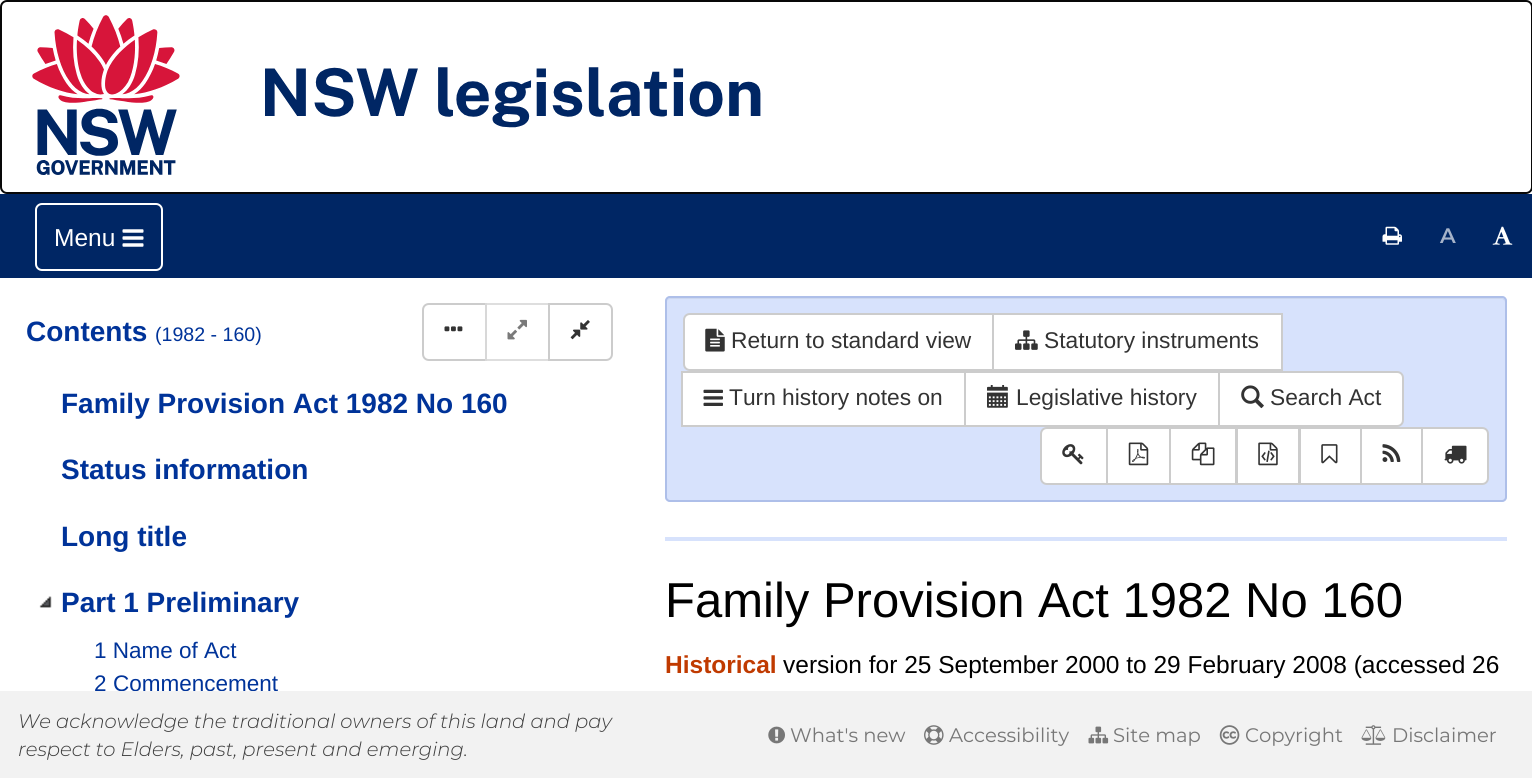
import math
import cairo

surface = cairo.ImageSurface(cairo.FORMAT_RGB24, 1532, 778)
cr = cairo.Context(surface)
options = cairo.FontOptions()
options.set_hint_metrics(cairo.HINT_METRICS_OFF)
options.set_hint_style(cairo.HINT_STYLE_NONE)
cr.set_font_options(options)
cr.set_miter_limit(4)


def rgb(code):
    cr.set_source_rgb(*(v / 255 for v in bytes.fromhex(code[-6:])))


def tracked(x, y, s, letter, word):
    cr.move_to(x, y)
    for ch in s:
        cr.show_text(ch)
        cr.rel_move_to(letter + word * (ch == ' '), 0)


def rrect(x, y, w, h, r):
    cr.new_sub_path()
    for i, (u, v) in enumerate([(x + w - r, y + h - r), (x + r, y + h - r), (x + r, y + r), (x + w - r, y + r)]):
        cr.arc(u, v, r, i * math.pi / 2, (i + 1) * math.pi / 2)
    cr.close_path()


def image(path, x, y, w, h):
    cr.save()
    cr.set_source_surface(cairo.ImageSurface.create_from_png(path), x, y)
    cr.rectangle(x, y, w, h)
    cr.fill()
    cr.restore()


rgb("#ffffff")
cr.paint()
rrect(1, 1, 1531, 192, 6)
rgb("#080808")
cr.stroke()
image("img/1.png", 32, 15, 729, 160)
rgb("#002664")
cr.rectangle(0, 194, 1532, 84)
cr.fill()
rrect(36, 204, 126, 66, 6)
rgb("#ffffff")
cr.stroke()
image("img/2.png", 122, 229, 22, 18)
image("img/3.png", 1382, 226, 20, 19)
image("img/4.png", 1492, 226, 21, 19)
cr.new_path()
cr.move_to(429, 304)
cr.line_to(486, 304)
cr.line_to(486, 360)
cr.line_to(429, 360)
cr.curve_to(425.5, 360, 423, 357.5, 423, 354)
cr.line_to(423, 310)
cr.curve_to(423, 306.5, 425.5, 304, 429, 304)
cr.close_path()
rgb("#cccccc")
cr.stroke()
image("img/5.png", 444, 326, 19, 6)
cr.set_source_rgba(1, 1, 1, 0.65)
cr.rectangle(485, 303, 2, 58)
cr.fill()
cr.rectangle(486, 304, 63, 56)
cr.set_source_rgba(0.8, 0.8, 0.8, 0.65)
cr.stroke()
image("img/6.png", 507, 319, 20, 21)
rgb("#ffffff")
cr.new_path()
cr.move_to(549, 304)
cr.line_to(606, 304)
cr.curve_to(609.5, 304, 612, 306.5, 612, 310)
cr.line_to(612, 354)
cr.curve_to(612, 357.5, 609.5, 360, 606, 360)
cr.line_to(549, 360)
cr.close_path()
cr.fill_preserve()
rgb("#cccccc")
cr.stroke()
image("img/7.png", 570, 320, 20, 20)
image("img/8.png", 39, 596, 13, 12)
rgb("#d7e2fc")
rrect(665, 296, 842, 206, 5)
cr.fill()
rgb("#ccd7ef")
cr.new_path()
cr.move_to(670, 299)
cr.line_to(1502, 299)
cr.curve_to(1503, 299, 1505, 301, 1505, 303)
cr.curve_to(1505, 300, 1504, 298, 1501, 298)
cr.line_to(671, 298)
cr.curve_to(668, 298, 667, 300, 667, 303)
cr.curve_to(667, 301, 668, 299, 670, 299)
cr.close_path()
cr.fill()
rrect(666, 297, 840, 204, 4)
rgb("#aebfe9")
cr.stroke()
rgb("#ffffff")
cr.new_path()
cr.move_to(690, 314)
cr.line_to(993, 314)
cr.line_to(993, 370)
cr.line_to(690, 370)
cr.curve_to(686.5, 370, 684, 367.5, 684, 364)
cr.line_to(684, 320)
cr.curve_to(684, 316.5, 686.5, 314, 690, 314)
cr.close_path()
cr.fill_preserve()
rgb("#cccccc")
cr.stroke()
image("img/9.png", 705, 328, 20, 24)
rgb("#ffffff")
cr.rectangle(993, 314, 289, 56)
cr.fill_preserve()
rgb("#cccccc")
cr.stroke()
image("img/10.png", 1015, 330, 23, 20)
rgb("#ffffff")
cr.rectangle(682, 372, 283, 54)
cr.fill_preserve()
rgb("#cccccc")
cr.stroke()
image("img/11.png", 703, 389, 20, 17)
rgb("#ffffff")
cr.rectangle(965, 372, 254, 54)
cr.fill_preserve()
rgb("#cccccc")
cr.stroke()
image("img/12.png", 987, 385, 21, 23)
rgb("#ffffff")
cr.new_path()
cr.move_to(1219, 372)
cr.line_to(1397, 372)
cr.curve_to(1400.5, 372, 1403, 374.5, 1403, 378)
cr.line_to(1403, 420)
cr.curve_to(1403, 423.5, 1400.5, 426, 1397, 426)
cr.line_to(1219, 426)
cr.close_path()
cr.fill_preserve()
rgb("#cccccc")
cr.stroke()
image("img/13.png", 1241, 385, 23, 24)
rgb("#ffffff")
cr.new_path()
cr.move_to(1047, 428)
cr.line_to(1107, 428)
cr.line_to(1107, 484)
cr.line_to(1047, 484)
cr.curve_to(1043.5, 484, 1041, 481.5, 1041, 478)
cr.line_to(1041, 434)
cr.curve_to(1041, 430.5, 1043.5, 428, 1047, 428)
cr.close_path()
cr.fill_preserve()
rgb("#cccccc")
cr.stroke()
image("img/14.png", 1062, 444, 22, 21)
rgb("#ffffff")
cr.rectangle(1107, 428, 63, 56)
cr.fill_preserve()
rgb("#cccccc")
cr.stroke()
image("img/15.png", 1128, 442, 21, 24)
rgb("#ffffff")
cr.rectangle(1170, 428, 66, 56)
cr.fill_preserve()
rgb("#cccccc")
cr.stroke()
image("img/16.png", 1191, 442, 24, 24)
rgb("#ffffff")
cr.rectangle(1237, 428, 62, 56)
cr.fill_preserve()
rgb("#cccccc")
cr.stroke()
image("img/17.png", 1258, 442, 20, 24)
rgb("#ffffff")
cr.rectangle(1300, 428, 61, 56)
cr.fill_preserve()
rgb("#cccccc")
cr.stroke()
image("img/18.png", 1321, 444, 17, 20)
rgb("#ffffff")
cr.rectangle(1361, 428, 61, 56)
cr.fill_preserve()
rgb("#cccccc")
cr.stroke()
image("img/19.png", 1382, 444, 19, 18)
rgb("#ffffff")
cr.new_path()
cr.move_to(1422, 428)
cr.line_to(1482, 428)
cr.curve_to(1485.5, 428, 1488, 430.5, 1488, 434)
cr.line_to(1488, 478)
cr.curve_to(1488, 481.5, 1485.5, 484, 1482, 484)
cr.line_to(1422, 484)
cr.close_path()
cr.fill_preserve()
rgb("#cccccc")
cr.stroke()
image("img/20.png", 1444, 445, 23, 19)
rgb("#d7e2fc")
cr.rectangle(665, 537, 842, 4)
cr.fill()
rgb("#f2f2f2")
cr.rectangle(0, 691, 1532, 87)
cr.fill()
image("img/21.png", 768, 726, 17, 18)
image("img/22.png", 924, 725, 20, 20)
image("img/23.png", 1088, 726, 21, 18)
image("img/24.png", 1219, 725, 21, 20)
image("img/25.png", 1361, 725, 25, 20)
cr.select_font_face("Liberation Sans")
cr.set_font_size(24.5)
rgb("#ffffff")
cr.move_to(54, 246)
cr.show_text("Menu")
cr.select_font_face("Montserrat SemiBold")
cr.set_font_size(21)
rgb("#a6b3c9")
tracked(1440, 243, "A", 1, 0)
cr.select_font_face("Liberation Sans", cairo.FONT_SLANT_NORMAL, cairo.FONT_WEIGHT_BOLD)
cr.set_font_size(28)
rgb("#003399")
cr.move_to(26, 341)
cr.show_text("Contents")
cr.select_font_face("Liberation Sans")
cr.set_font_size(19.6)
cr.move_to(155, 341)
cr.show_text("(1982 - 160)")
cr.select_font_face("Liberation Sans", cairo.FONT_SLANT_NORMAL, cairo.FONT_WEIGHT_BOLD)
cr.set_font_size(28)
for x, y, s in [
    (61, 413, "Family Provision Act 1982 No 160"),
    (61, 479, "Status information"),
    (61, 546, "Long title"),
    (61, 612, "Part 1 Preliminary"),
]:
    cr.move_to(x, y)
    cr.show_text(s)
cr.select_font_face("Liberation Sans")
cr.set_font_size(22.5)
cr.move_to(94, 658)
cr.show_text("1 Name of Act")
cr.move_to(94, 691)
cr.show_text("2")
cr.save()
cr.rectangle(0, 278, 639, 413)
cr.clip()
cr.move_to(113, 691)
cr.show_text("Commencement")
cr.restore()
cr.set_font_size(22.75)
rgb("#333333")
for x, y, s in [
    (731, 348, "Return to standard view"),
    (1044, 348, "Statutory instruments"),
    (729, 405, "Turn history notes on"),
    (1016, 405, "Legislative history"),
    (1270, 405, "Search Act"),
]:
    cr.move_to(x, y)
    cr.show_text(s)
cr.set_font_size(49)
rgb("#000000")
cr.move_to(665, 617)
cr.show_text("Family Provision Act 1982 No 160")
cr.select_font_face("Liberation Sans", cairo.FONT_SLANT_NORMAL, cairo.FONT_WEIGHT_BOLD)
cr.set_font_size(24.5)
rgb("#c03a00")
cr.move_to(665, 673)
cr.show_text("Historical")
cr.select_font_face("Liberation Sans")
rgb("#000000")
cr.move_to(783, 673)
cr.show_text("version for 25 September 2000 to 29 February 2008 (accessed 26")
cr.select_font_face("Montserrat Light", cairo.FONT_SLANT_ITALIC)
cr.set_font_size(19.6)
rgb("#3d3d3d")
cr.move_to(18, 728)
cr.show_text("We acknowledge the traditional owners of this land and pay")
cr.move_to(18, 756)
cr.show_text("respect to Elders, past, present and emerging.")
cr.select_font_face("Montserrat")
rgb("#777777")
for x, y, s in [
    (790, 742, "What's new"),
    (949, 742, "Accessibility"),
    (1113, 742, "Site map"),
    (1245, 742, "Copyright"),
    (1392, 742, "Disclaimer"),
]:
    cr.move_to(x, y)
    cr.show_text(s)
surface.write_to_png("page.png")
